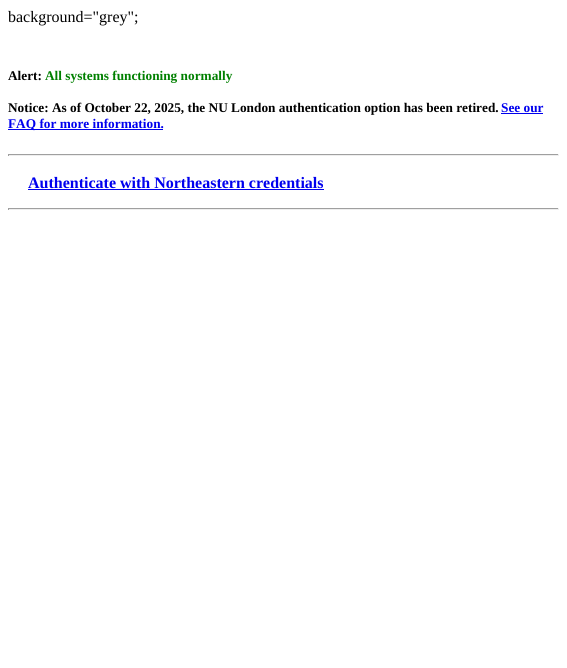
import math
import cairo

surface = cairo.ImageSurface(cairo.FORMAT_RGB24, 567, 668)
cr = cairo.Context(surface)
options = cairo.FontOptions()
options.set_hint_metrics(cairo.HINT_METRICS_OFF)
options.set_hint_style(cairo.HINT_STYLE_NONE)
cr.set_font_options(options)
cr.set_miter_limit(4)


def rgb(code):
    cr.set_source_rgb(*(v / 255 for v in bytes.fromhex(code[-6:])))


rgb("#ffffff")
cr.paint()
for x, y, w, h, color in [
    (501, 113, 42, 1, "#0000ee"),
    (8, 129, 155, 1, "#0000ee"),
    (8, 154, 551, 1, "#9f9f9f"),
    (558, 154, 1, 2, "#eeeeee"),
    (8, 155, 551, 1, "#eeeeee"),
    (8, 154, 1, 2, "#9f9f9f"),
    (28, 189, 296, 1, "#0000ee"),
    (8, 208, 551, 1, "#9f9f9f"),
    (558, 208, 1, 2, "#eeeeee"),
    (8, 209, 551, 1, "#eeeeee"),
    (8, 208, 1, 2, "#9f9f9f"),
]:
    rgb(color)
    cr.rectangle(x, y, w, h)
    cr.fill()
cr.select_font_face("Liberation Serif")
cr.set_font_size(16)
rgb("#000000")
cr.move_to(8, 22)
cr.show_text("background=\"grey\";")
cr.select_font_face("Liberation Serif", cairo.FONT_SLANT_NORMAL, cairo.FONT_WEIGHT_BOLD)
cr.set_font_size(13.3)
cr.move_to(8, 80)
cr.show_text("Alert:")
rgb("#008000")
cr.move_to(45, 80)
cr.show_text("All systems functioning normally")
rgb("#000000")
cr.move_to(8, 112)
cr.show_text("Notice: As of October 22, 2025, the NU London authentication option has been retired.")
rgb("#0000ee")
cr.move_to(501, 112)
cr.show_text("See our")
cr.move_to(8, 128)
cr.show_text("FAQ for more information.")
cr.set_font_size(16)
cr.move_to(28, 188)
cr.show_text("Authenticate with Northeastern credentials")
surface.write_to_png("page.png")
